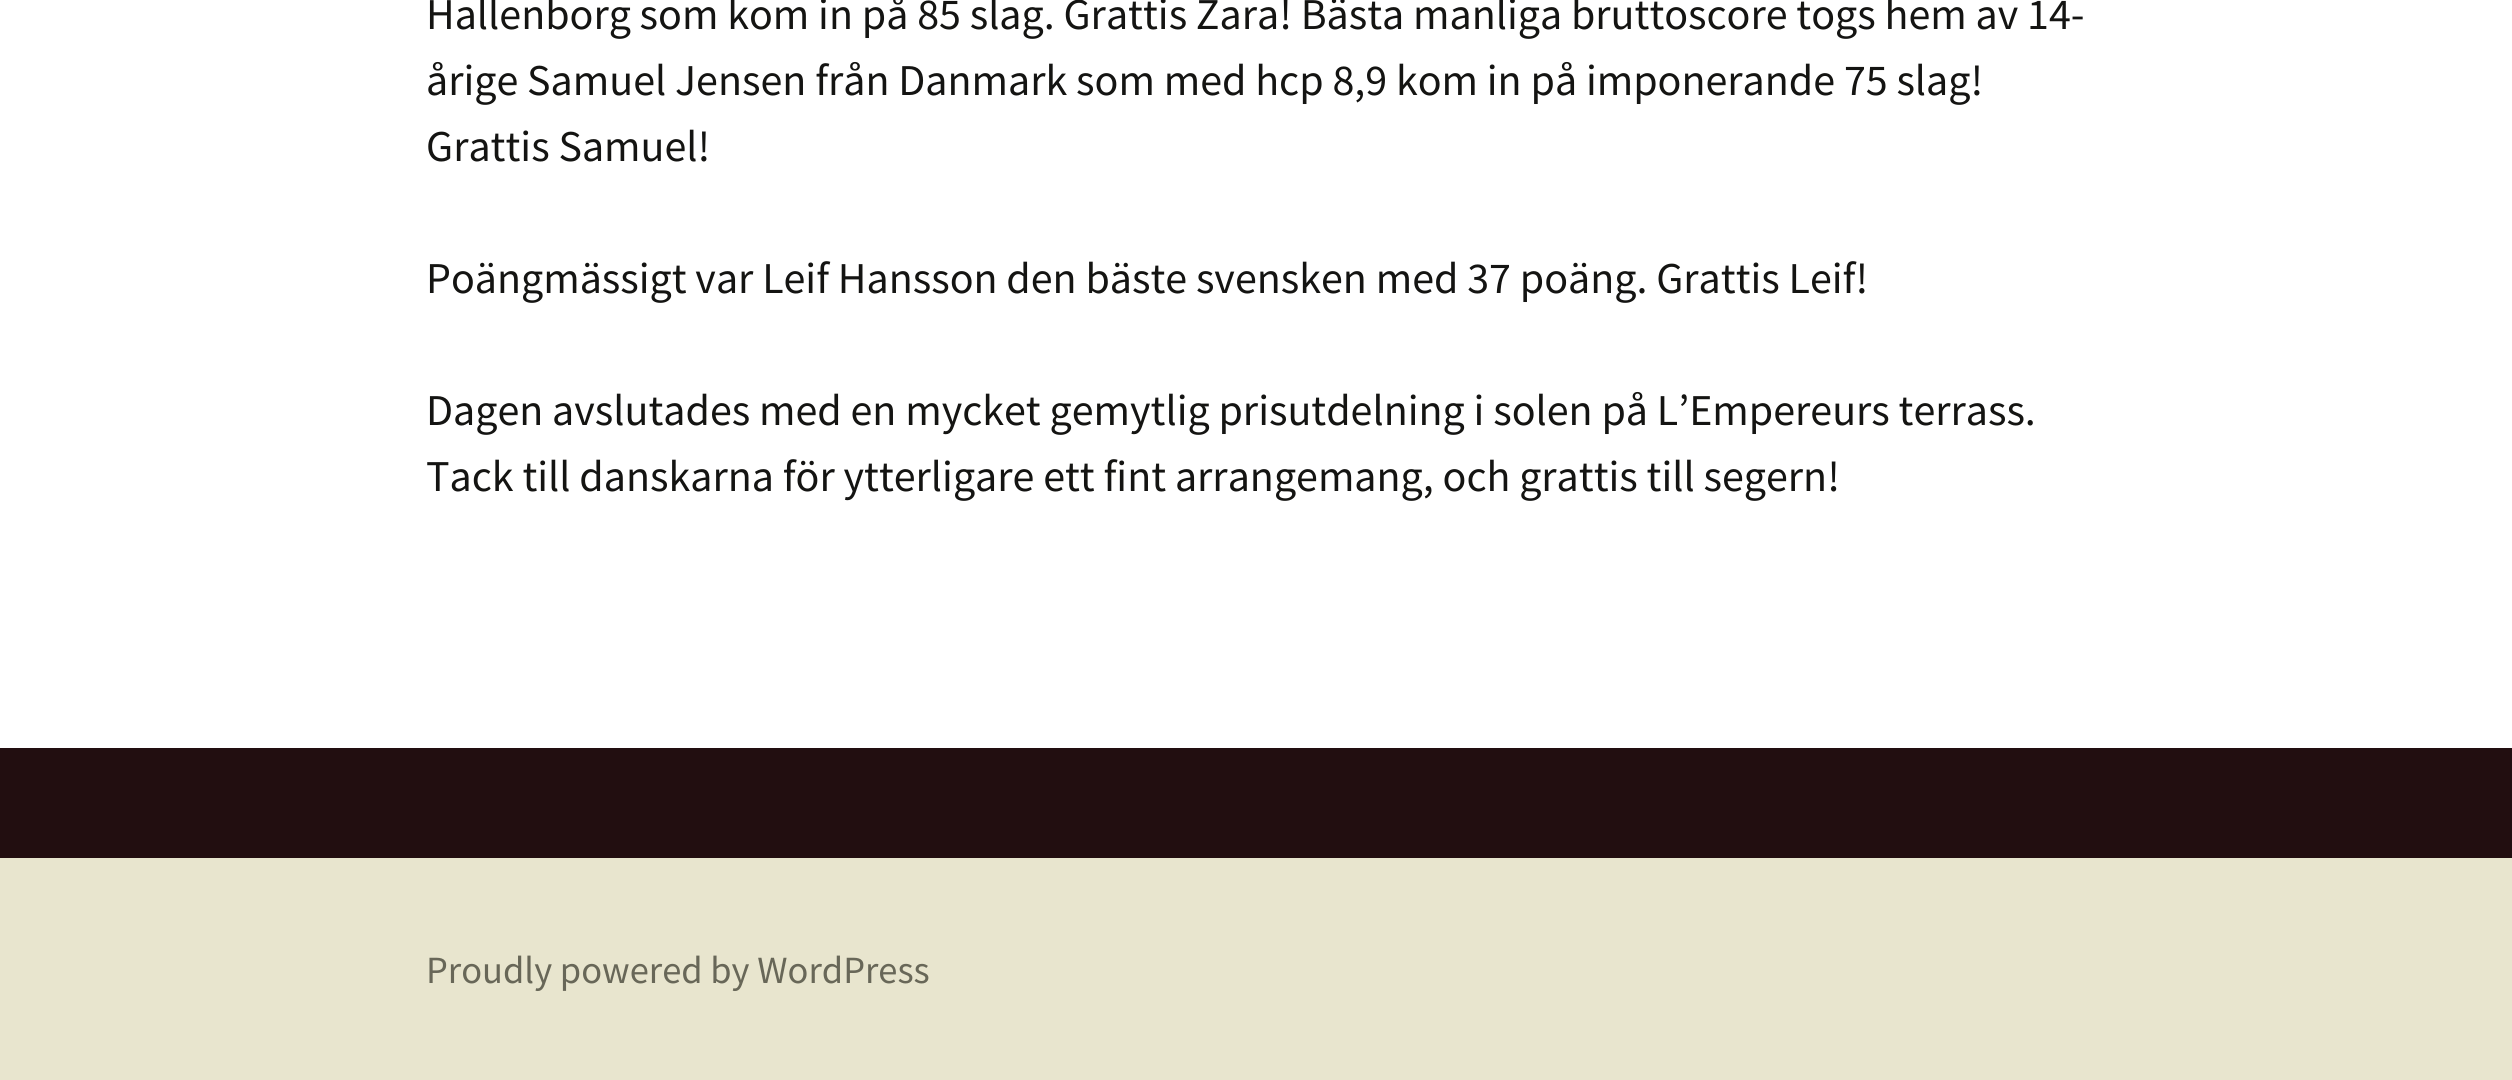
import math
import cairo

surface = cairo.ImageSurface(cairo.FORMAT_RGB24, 2512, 1080)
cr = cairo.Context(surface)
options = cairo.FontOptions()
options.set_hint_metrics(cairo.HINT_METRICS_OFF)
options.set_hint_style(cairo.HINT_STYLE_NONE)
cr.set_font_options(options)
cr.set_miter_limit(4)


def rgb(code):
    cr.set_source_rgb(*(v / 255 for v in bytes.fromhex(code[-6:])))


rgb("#ffffff")
cr.paint()
rgb("#e8e5ce")
cr.rectangle(0, 858, 2512, 222)
cr.fill()
rgb("#220e10")
cr.rectangle(0, 748, 2512, 110)
cr.fill()
cr.select_font_face("Source Sans Pro")
cr.set_font_size(44)
rgb("#141412")
for x, y, s in [
    (426, 29, "Hallenborg som kom in på 85 slag. Grattis Zara! Bästa manliga bruttoscore togs hem av 14-"),
    (426, 95, "årige Samuel Jensen från Danmark som med hcp 8,9 kom in på imponerande 75 slag!"),
    (426, 161, "Grattis Samuel!"),
    (426, 293, "Poängmässigt var Leif Hansson den bäste svensken med 37 poäng. Grattis Leif!"),
    (426, 425, "Dagen avslutades med en mycket gemytlig prisutdelning i solen på L’Empereurs terrass."),
    (426, 491, "Tack till danskarna för ytterligare ett fint arrangemang, och grattis till segern!"),
]:
    cr.move_to(x, y)
    cr.show_text(s)
cr.set_font_size(38.5)
rgb("#686758")
cr.move_to(426, 983)
cr.show_text("Proudly powered by WordPress")
surface.write_to_png("page.png")
